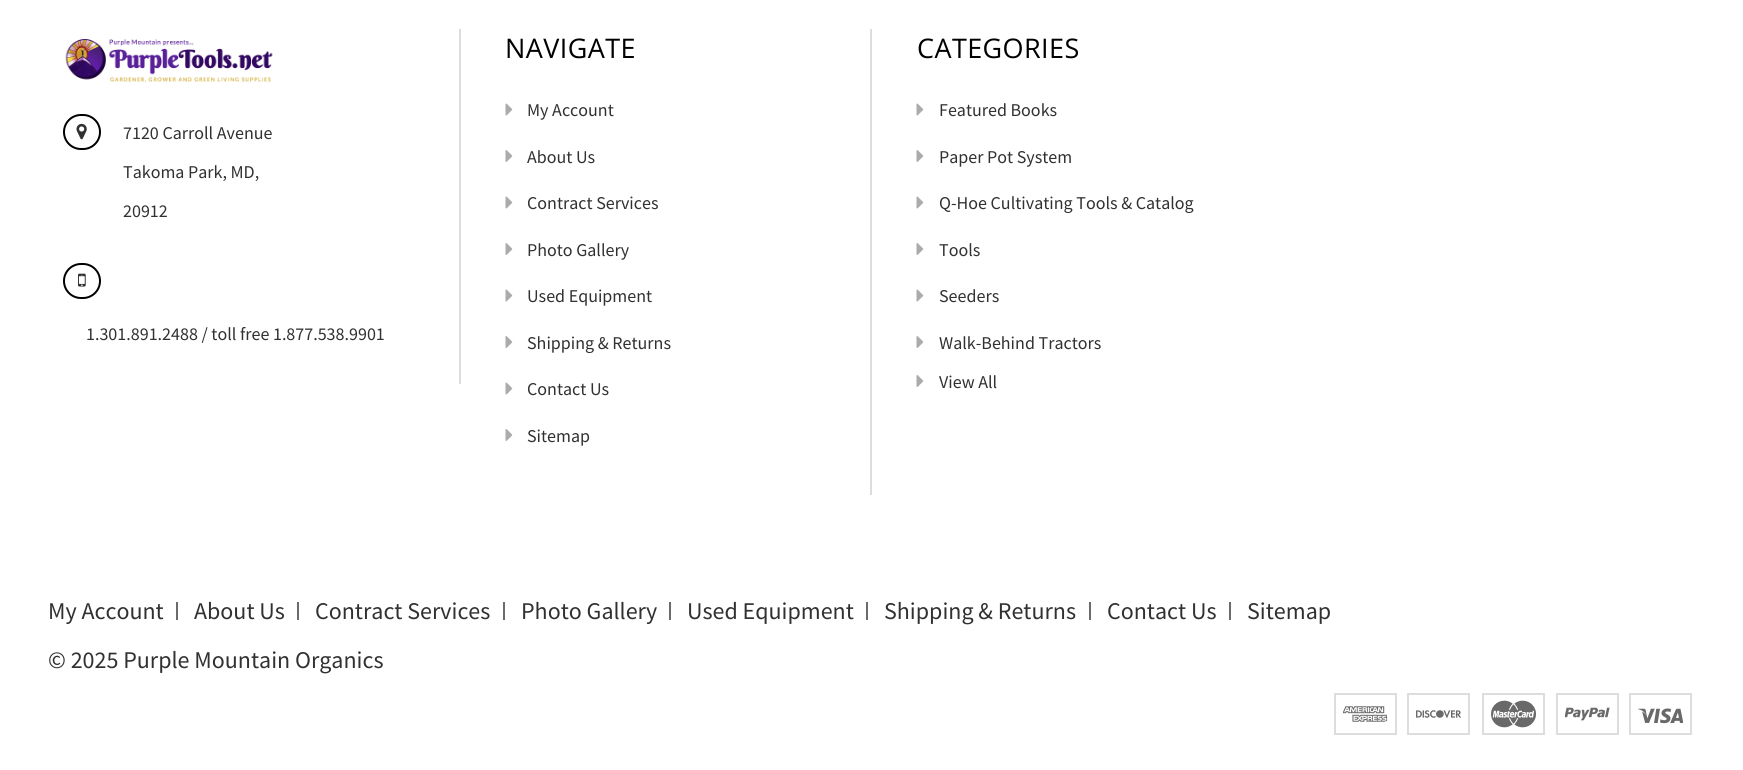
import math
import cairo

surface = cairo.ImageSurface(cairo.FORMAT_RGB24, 1743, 770)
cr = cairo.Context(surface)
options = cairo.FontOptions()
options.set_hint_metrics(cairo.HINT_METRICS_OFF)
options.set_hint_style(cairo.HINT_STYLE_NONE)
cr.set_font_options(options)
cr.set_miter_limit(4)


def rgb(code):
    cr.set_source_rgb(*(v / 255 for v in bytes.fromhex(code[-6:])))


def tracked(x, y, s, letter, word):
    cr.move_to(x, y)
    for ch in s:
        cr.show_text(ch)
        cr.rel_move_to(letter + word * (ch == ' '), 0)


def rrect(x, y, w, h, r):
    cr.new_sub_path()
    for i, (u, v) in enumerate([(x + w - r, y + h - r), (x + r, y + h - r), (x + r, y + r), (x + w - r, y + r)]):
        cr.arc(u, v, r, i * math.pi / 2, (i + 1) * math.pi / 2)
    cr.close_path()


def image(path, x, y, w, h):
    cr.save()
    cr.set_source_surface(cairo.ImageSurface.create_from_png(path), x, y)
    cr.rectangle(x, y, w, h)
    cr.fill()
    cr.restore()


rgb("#ffffff")
cr.paint()
rgb("#dddddd")
cr.rectangle(459, 29, 2, 355)
cr.fill()
image("img/1.png", 65, 39, 208, 44)
rrect(64, 115, 36, 34, 17)
rgb("#000000")
cr.stroke()
image("img/2.png", 76, 123, 11, 17)
rrect(64, 264, 36, 34, 17)
cr.stroke()
image("img/3.png", 78, 273, 8, 14)
rgb("#dddddd")
cr.rectangle(870, 29, 2, 466)
cr.fill()
image("img/4.png", 505, 103, 8, 13)
image("img/5.png", 505, 150, 8, 12)
image("img/4.png", 505, 196, 8, 13)
image("img/5.png", 505, 243, 8, 12)
image("img/4.png", 505, 289, 8, 13)
image("img/5.png", 505, 336, 8, 12)
image("img/4.png", 505, 382, 8, 13)
image("img/5.png", 505, 429, 8, 12)
image("img/4.png", 916, 103, 8, 13)
image("img/5.png", 916, 150, 8, 12)
image("img/4.png", 916, 196, 8, 13)
image("img/5.png", 916, 243, 8, 12)
image("img/4.png", 916, 289, 8, 13)
image("img/5.png", 916, 336, 8, 12)
image("img/5.png", 916, 375, 8, 12)
for x, y, w, h, color in [
    (176, 602, 2, 18, "#6b6b6b"),
    (297, 602, 2, 18, "#6b6b6b"),
    (503, 602, 2, 18, "#6b6b6b"),
    (669, 602, 2, 18, "#6b6b6b"),
    (866, 602, 2, 18, "#6b6b6b"),
    (1089, 602, 2, 18, "#6b6b6b"),
    (1229, 602, 2, 18, "#6b6b6b"),
]:
    rgb(color)
    cr.rectangle(x, y, w, h)
    cr.fill()
cr.rectangle(1335, 694, 61, 40)
rgb("#dddddd")
cr.stroke()
cr.rectangle(1408, 694, 61, 40)
cr.stroke()
cr.rectangle(1483, 694, 61, 40)
cr.stroke()
cr.rectangle(1557, 694, 61, 40)
cr.stroke()
cr.rectangle(1630, 694, 61, 40)
cr.stroke()
image("img/6.png", 1343, 706, 45, 16)
image("img/7.png", 1416, 710, 45, 8)
image("img/8.png", 1491, 700, 45, 28)
image("img/9.png", 1565, 707, 45, 14)
image("img/10.png", 1638, 708, 45, 16)
cr.select_font_face("Source Sans Pro")
cr.set_font_size(18)
rgb("#313131")
for x, y, s in [
    (123, 139, "7120 Carroll Avenue"),
    (123, 178, "Takoma Park, MD,"),
    (123, 217, "20912"),
    (86, 340, "1.301.891.2488 / toll free 1.877.538.9901"),
]:
    cr.move_to(x, y)
    cr.show_text(s)
cr.select_font_face("Open Sans")
cr.set_font_size(27)
rgb("#000000")
tracked(505, 58, "NAVIGATE", 0.4, 0)
cr.select_font_face("Source Sans Pro")
cr.set_font_size(18)
rgb("#313131")
for x, y, s in [
    (527, 116, "My Account"),
    (527, 163, "About Us"),
    (527, 209, "Contract Services"),
    (527, 256, "Photo Gallery"),
    (527, 302, "Used Equipment"),
    (527, 349, "Shipping & Returns"),
    (527, 395, "Contact Us"),
    (527, 442, "Sitemap"),
]:
    cr.move_to(x, y)
    cr.show_text(s)
cr.select_font_face("Open Sans")
cr.set_font_size(27)
rgb("#000000")
tracked(917, 58, "CATEGORIES", 0.4, 0)
cr.select_font_face("Source Sans Pro")
cr.set_font_size(18)
rgb("#313131")
for x, y, s in [
    (939, 116, "Featured Books"),
    (939, 163, "Paper Pot System"),
    (939, 209, "Q-Hoe Cultivating Tools & Catalog"),
    (939, 256, "Tools"),
    (939, 302, "Seeders"),
    (939, 349, "Walk-Behind Tractors"),
    (939, 388, "View All"),
]:
    cr.move_to(x, y)
    cr.show_text(s)
cr.set_font_size(24)
for x, y, s in [
    (48, 619, "My Account"),
    (194, 619, "About Us"),
    (315, 619, "Contract Services"),
    (521, 619, "Photo Gallery"),
    (687, 619, "Used Equipment"),
    (884, 619, "Shipping & Returns"),
    (1107, 619, "Contact Us"),
    (1247, 619, "Sitemap"),
    (48, 668, "© 2025 Purple Mountain Organics"),
]:
    cr.move_to(x, y)
    cr.show_text(s)
surface.write_to_png("page.png")
